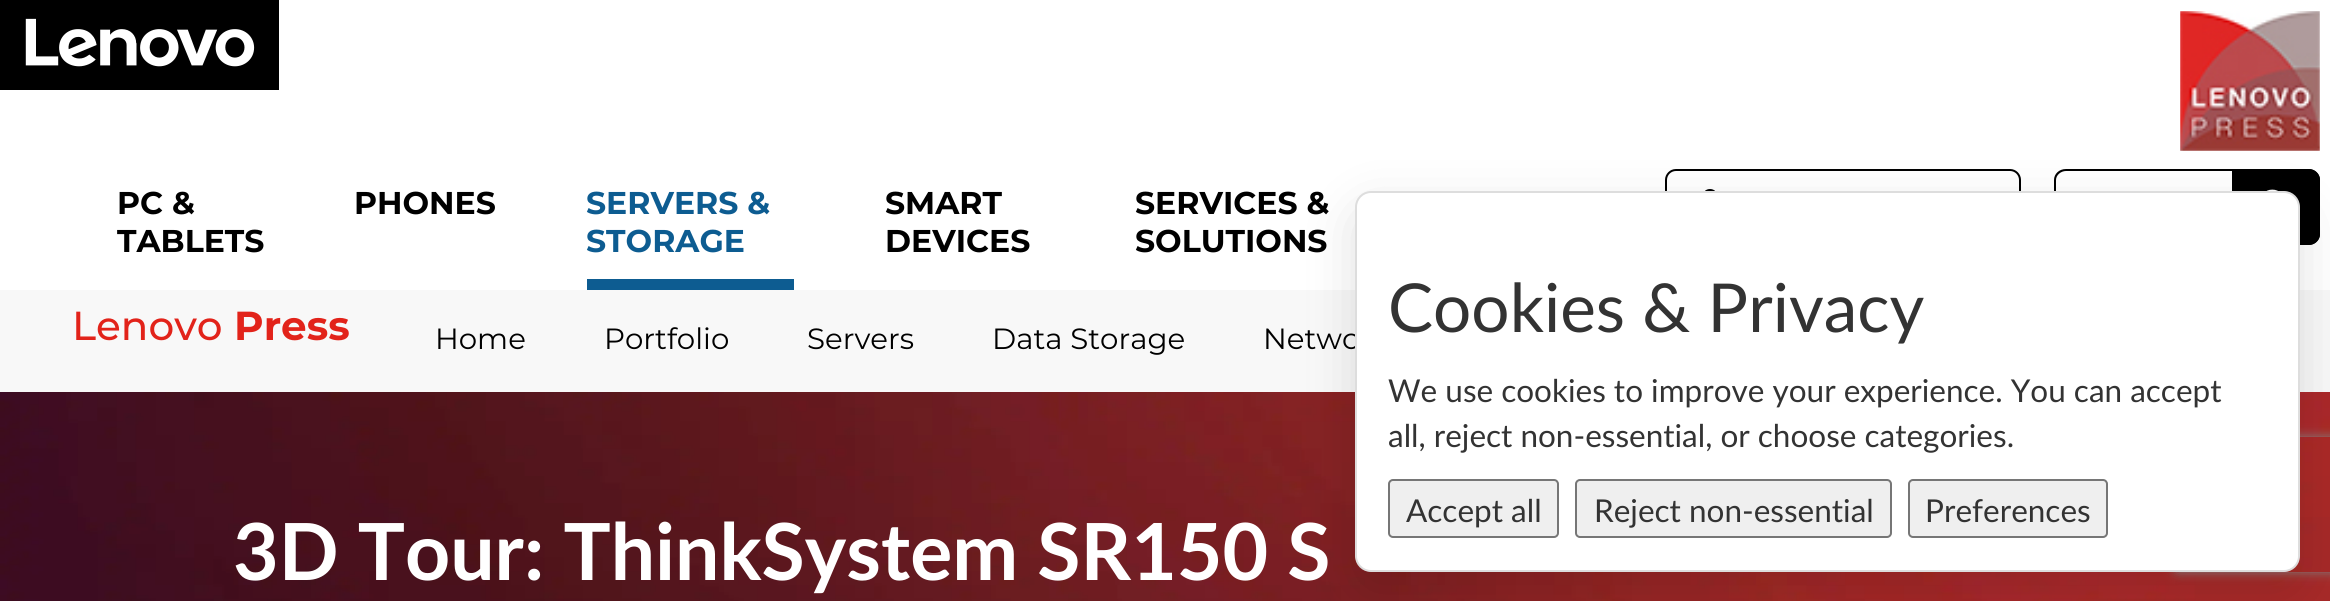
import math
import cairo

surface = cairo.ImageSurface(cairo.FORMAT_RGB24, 2330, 601)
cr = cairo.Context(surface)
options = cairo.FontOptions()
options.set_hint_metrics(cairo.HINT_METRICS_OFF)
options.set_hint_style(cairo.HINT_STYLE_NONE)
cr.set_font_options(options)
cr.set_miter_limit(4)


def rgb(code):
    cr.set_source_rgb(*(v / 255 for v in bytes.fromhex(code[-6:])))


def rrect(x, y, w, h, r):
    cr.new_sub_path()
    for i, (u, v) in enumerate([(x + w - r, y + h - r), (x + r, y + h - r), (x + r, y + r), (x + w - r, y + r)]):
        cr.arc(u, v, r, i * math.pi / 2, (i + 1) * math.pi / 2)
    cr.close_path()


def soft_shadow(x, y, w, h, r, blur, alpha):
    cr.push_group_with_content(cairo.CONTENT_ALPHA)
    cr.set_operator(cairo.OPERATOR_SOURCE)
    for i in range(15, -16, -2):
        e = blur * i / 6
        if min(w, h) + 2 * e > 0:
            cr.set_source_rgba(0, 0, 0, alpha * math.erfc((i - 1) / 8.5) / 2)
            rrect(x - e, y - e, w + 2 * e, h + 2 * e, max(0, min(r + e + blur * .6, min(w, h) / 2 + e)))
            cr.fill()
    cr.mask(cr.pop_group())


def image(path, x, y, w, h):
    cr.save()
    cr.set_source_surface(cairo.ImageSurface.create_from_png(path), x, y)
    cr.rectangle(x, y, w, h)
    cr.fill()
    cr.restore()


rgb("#ffffff")
cr.paint()
image("img/1.png", 0, 0, 279, 90)
image("img/2.png", 2180, 11, 140, 140)
rgb("#0d5c91")
cr.rectangle(587, 279, 207, 11)
cr.fill()
rrect(1666, 170, 354, 74, 10)
rgb("#000000")
cr.stroke()
image("img/3.png", 1705, 189, 10, 2)
cr.set_fill_rule(cairo.FILL_RULE_EVEN_ODD)
cr.new_path()
cr.move_to(2066, 169)
cr.line_to(2234, 169)
cr.line_to(2234, 245)
cr.line_to(2066, 245)
cr.curve_to(2059, 245, 2054, 240, 2054, 234)
cr.line_to(2054, 180)
cr.curve_to(2054, 174, 2059, 169, 2066, 169)
cr.close_path()
cr.move_to(2066, 171)
cr.line_to(2234, 171)
cr.line_to(2234, 243)
cr.line_to(2066, 243)
cr.curve_to(2061, 243, 2056, 239, 2056, 234)
cr.line_to(2056, 180)
cr.curve_to(2056, 175, 2061, 171, 2066, 171)
cr.close_path()
cr.fill()
cr.new_path()
cr.move_to(2232, 169)
cr.line_to(2309, 169)
cr.curve_to(2315, 169, 2320, 174, 2320, 180)
cr.line_to(2320, 234)
cr.curve_to(2320, 240, 2315, 245, 2309, 245)
cr.line_to(2232, 245)
cr.close_path()
cr.fill()
cr.new_path()
cr.move_to(2232, 169)
cr.line_to(2308, 169)
cr.curve_to(2315, 169, 2320, 174, 2320, 180)
cr.line_to(2320, 234)
cr.curve_to(2320, 240, 2315, 245, 2308, 245)
cr.line_to(2232, 245)
cr.close_path()
cr.move_to(2232, 171)
cr.line_to(2308, 171)
cr.curve_to(2313, 171, 2318, 175, 2318, 180)
cr.line_to(2318, 234)
cr.curve_to(2318, 239, 2313, 243, 2308, 243)
cr.line_to(2232, 243)
cr.close_path()
cr.fill()
image("img/4.png", 2266, 189, 12, 2)
rgb("#f8f8f8")
cr.rectangle(0, 290, 2330, 102)
cr.fill()
image("img/5.png", 0, 392, 2330, 209)
rgb("#000000")
soft_shadow(1355, 209, 945, 381, 16, 27, 0.12)
cr.save()
cr.new_path()
cr.move_to(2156, 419)
cr.line_to(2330, 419)
cr.line_to(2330, 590)
cr.line_to(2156, 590)
cr.close_path()
cr.move_to(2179, 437)
cr.line_to(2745, 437)
cr.curve_to(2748, 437, 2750, 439, 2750, 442)
cr.line_to(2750, 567)
cr.curve_to(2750, 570, 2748, 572, 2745, 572)
cr.line_to(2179, 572)
cr.curve_to(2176, 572, 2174, 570, 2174, 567)
cr.line_to(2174, 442)
cr.curve_to(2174, 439, 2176, 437, 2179, 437)
cr.close_path()
cr.clip()
rgb("#808080")
soft_shadow(2174, 437, 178, 135, 5, 5.5, 1)
cr.restore()
cr.select_font_face("Montserrat", cairo.FONT_SLANT_NORMAL, cairo.FONT_WEIGHT_BOLD)
cr.set_font_size(31.5)
rgb("#000000")
for x, y, s in [
    (117, 214, "PC &"),
    (117, 252, "TABLETS"),
    (354, 214, "PHONES"),
]:
    cr.move_to(x, y)
    cr.show_text(s)
rgb("#0d5c91")
cr.move_to(586, 214)
cr.show_text("SERVERS &")
cr.move_to(586, 252)
cr.show_text("STORAGE")
rgb("#000000")
for x, y, s in [
    (885, 214, "SMART"),
    (885, 252, "DEVICES"),
    (1135, 214, "SERVICES &"),
    (1135, 252, "SOLUTIONS"),
]:
    cr.move_to(x, y)
    cr.show_text(s)
cr.select_font_face("Montserrat Medium")
cr.set_font_size(40.5)
rgb("#e2231a")
cr.move_to(72, 340)
cr.show_text("Lenovo")
cr.select_font_face("Montserrat", cairo.FONT_SLANT_NORMAL, cairo.FONT_WEIGHT_BOLD)
cr.move_to(234, 340)
cr.show_text("Press")
cr.select_font_face("Montserrat")
cr.set_font_size(29.25)
rgb("#000000")
for x, y, s in [
    (435, 349, "Home"),
    (604, 349, "Portfolio"),
    (807, 349, "Servers"),
    (992, 349, "Data Storage"),
    (1263, 349, "Netwo"),
]:
    cr.move_to(x, y)
    cr.show_text(s)
cr.select_font_face("Lato", cairo.FONT_SLANT_NORMAL, cairo.FONT_WEIGHT_BOLD)
cr.set_font_size(78.75)
rgb("#ffffff")
cr.move_to(233, 580)
cr.show_text("3D Tour: ThinkSystem SR150 S")
rrect(1356, 192, 943, 379, 15)
cr.fill_preserve()
rgb("#dddddd")
cr.stroke()
cr.select_font_face("Lato")
cr.set_font_size(67.5)
rgb("#333333")
cr.move_to(1388, 332)
cr.show_text("Cookies & Privacy")
cr.set_font_size(31.5)
cr.move_to(1388, 402)
cr.show_text("We use cookies to improve your experience. You can accept")
cr.move_to(1388, 447)
cr.show_text("all, reject non-essential, or choose categories.")
rgb("#efefef")
rrect(1389, 480, 169, 57, 4)
cr.fill_preserve()
rgb("#767676")
cr.stroke()
rgb("#333333")
cr.move_to(1406, 522)
cr.show_text("Accept all")
rgb("#efefef")
rrect(1576, 480, 315, 57, 4)
cr.fill_preserve()
rgb("#767676")
cr.stroke()
rgb("#333333")
cr.move_to(1594, 522)
cr.show_text("Reject non-essential")
rgb("#efefef")
rrect(1909, 480, 198, 57, 4)
cr.fill_preserve()
rgb("#767676")
cr.stroke()
rgb("#333333")
cr.move_to(1925, 522)
cr.show_text("Preferences")
surface.write_to_png("page.png")
